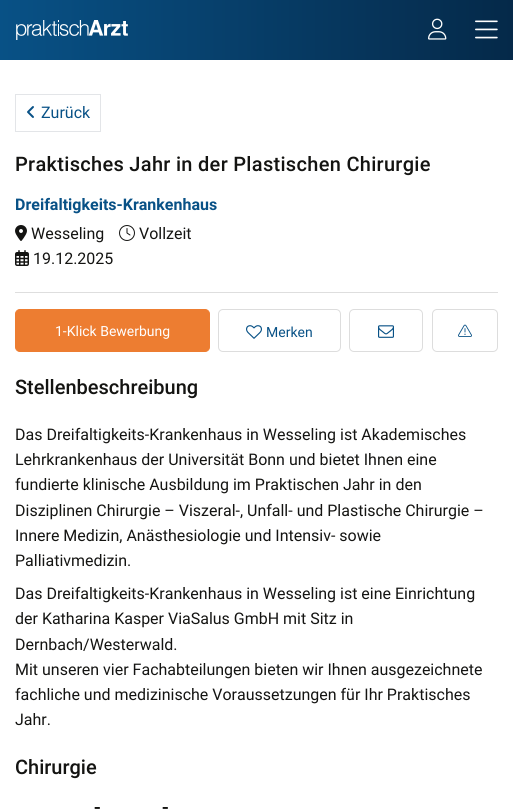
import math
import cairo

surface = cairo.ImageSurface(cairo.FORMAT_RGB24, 513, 809)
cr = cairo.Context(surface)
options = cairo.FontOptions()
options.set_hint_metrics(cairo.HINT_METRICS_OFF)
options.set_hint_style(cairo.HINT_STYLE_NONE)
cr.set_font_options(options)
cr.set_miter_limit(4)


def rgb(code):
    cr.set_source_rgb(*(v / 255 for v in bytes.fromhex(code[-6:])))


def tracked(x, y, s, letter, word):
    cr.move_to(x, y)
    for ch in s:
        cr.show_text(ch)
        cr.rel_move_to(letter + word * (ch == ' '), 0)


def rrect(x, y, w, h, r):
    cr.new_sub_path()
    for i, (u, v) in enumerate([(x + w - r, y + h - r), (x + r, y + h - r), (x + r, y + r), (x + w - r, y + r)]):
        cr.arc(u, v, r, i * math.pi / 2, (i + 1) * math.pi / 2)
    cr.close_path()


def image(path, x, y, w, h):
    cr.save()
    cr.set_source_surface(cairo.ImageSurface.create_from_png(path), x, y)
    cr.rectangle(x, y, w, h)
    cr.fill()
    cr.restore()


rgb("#ffffff")
cr.paint()
gradient = cairo.LinearGradient(513, 30, 0, 30)
gradient.add_color_stop_rgba(0, 0.02, 0.161, 0.286, 1)
gradient.add_color_stop_rgba(1, 0.031, 0.318, 0.525, 1)
cr.set_source(gradient)
cr.rectangle(0, 0, 513, 60)
cr.fill()
image("img/1.png", 16, 20, 112, 20)
image("img/2.png", 428, 18, 19, 22)
image("img/3.png", 475, 20, 23, 19)
cr.rectangle(15.5, 94.5, 85, 37)
rgb("#e3e5e8")
cr.set_line_width(1)
cr.stroke()
image("img/4.png", 27, 106, 7, 12)
rgb("#dedede")
cr.rectangle(15, 292, 483, 1)
cr.fill()
image("img/5.png", 15, 225, 12, 16)
image("img/6.png", 119, 225, 16, 16)
image("img/7.png", 15, 250, 14, 16)
rgb("#ed7d31")
rrect(15.5, 309.5, 194, 42, 4.5)
cr.fill_preserve()
cr.stroke()
rrect(218.5, 309.5, 122, 42, 4.5)
rgb("#dddddd")
cr.stroke()
image("img/8.png", 246, 325, 16, 14)
rrect(349.5, 309.5, 73, 42, 4.5)
cr.stroke()
image("img/9.png", 378, 325, 16, 13)
rrect(432.5, 309.5, 65, 42, 4.5)
cr.stroke()
image("img/10.png", 458, 324, 14, 13)
cr.select_font_face("Roboto")
cr.set_font_size(16)
rgb("#085186")
cr.move_to(41, 118)
cr.show_text("Zurück")
cr.select_font_face("Roboto Medium")
cr.set_font_size(20)
rgb("#141412")
tracked(15, 171, "Praktisches Jahr in der Plastischen Chirurgie", 0.3, 0)
cr.select_font_face("Roboto", cairo.FONT_SLANT_NORMAL, cairo.FONT_WEIGHT_BOLD)
cr.set_font_size(16)
rgb("#085186")
cr.move_to(15, 210)
cr.show_text("Dreifaltigkeits-Krankenhaus")
cr.select_font_face("Roboto")
rgb("#141412")
for x, y, s in [
    (31, 239, "Wesseling"),
    (139, 239, "Vollzeit"),
    (33, 264, "19.12.2025"),
]:
    cr.move_to(x, y)
    cr.show_text(s)
cr.set_font_size(14)
rgb("#ffffff")
cr.move_to(55, 336)
cr.show_text("1-Klick Bewerbung")
rgb("#085186")
cr.move_to(266, 337)
cr.show_text("Merken")
cr.select_font_face("Roboto Medium")
cr.set_font_size(20)
rgb("#141412")
cr.move_to(15, 394)
cr.show_text("Stellenbeschreibung")
cr.select_font_face("Roboto")
cr.set_font_size(16)
for x, y, s in [
    (15, 440, "Das Dreifaltigkeits-Krankenhaus in Wesseling ist Akademisches"),
    (15, 465, "Lehrkrankenhaus der Universität Bonn und bietet Ihnen eine"),
    (15, 490, "fundierte klinische Ausbildung im Praktischen Jahr in den"),
    (15, 516, "Disziplinen Chirurgie – Viszeral-, Unfall- und Plastische Chirurgie –"),
    (15, 541, "Innere Medizin, Anästhesiologie und Intensiv- sowie"),
    (15, 566, "Palliativmedizin."),
    (15, 599, "Das Dreifaltigkeits-Krankenhaus in Wesseling ist eine Einrichtung"),
    (15, 624, "der Katharina Kasper ViaSalus GmbH mit Sitz in"),
    (15, 650, "Dernbach/Westerwald."),
    (15, 675, "Mit unseren vier Fachabteilungen bieten wir Ihnen ausgezeichnete"),
    (15, 700, "fachliche und medizinische Voraussetzungen für Ihr Praktisches"),
    (15, 725, "Jahr."),
]:
    cr.move_to(x, y)
    cr.show_text(s)
cr.select_font_face("Roboto Medium")
cr.set_font_size(20)
for x, y, s in [
    (15, 774, "Chirurgie"),
    (94, 814, "-"),
    (162, 814, "-"),
]:
    cr.move_to(x, y)
    cr.show_text(s)
surface.write_to_png("page.png")
